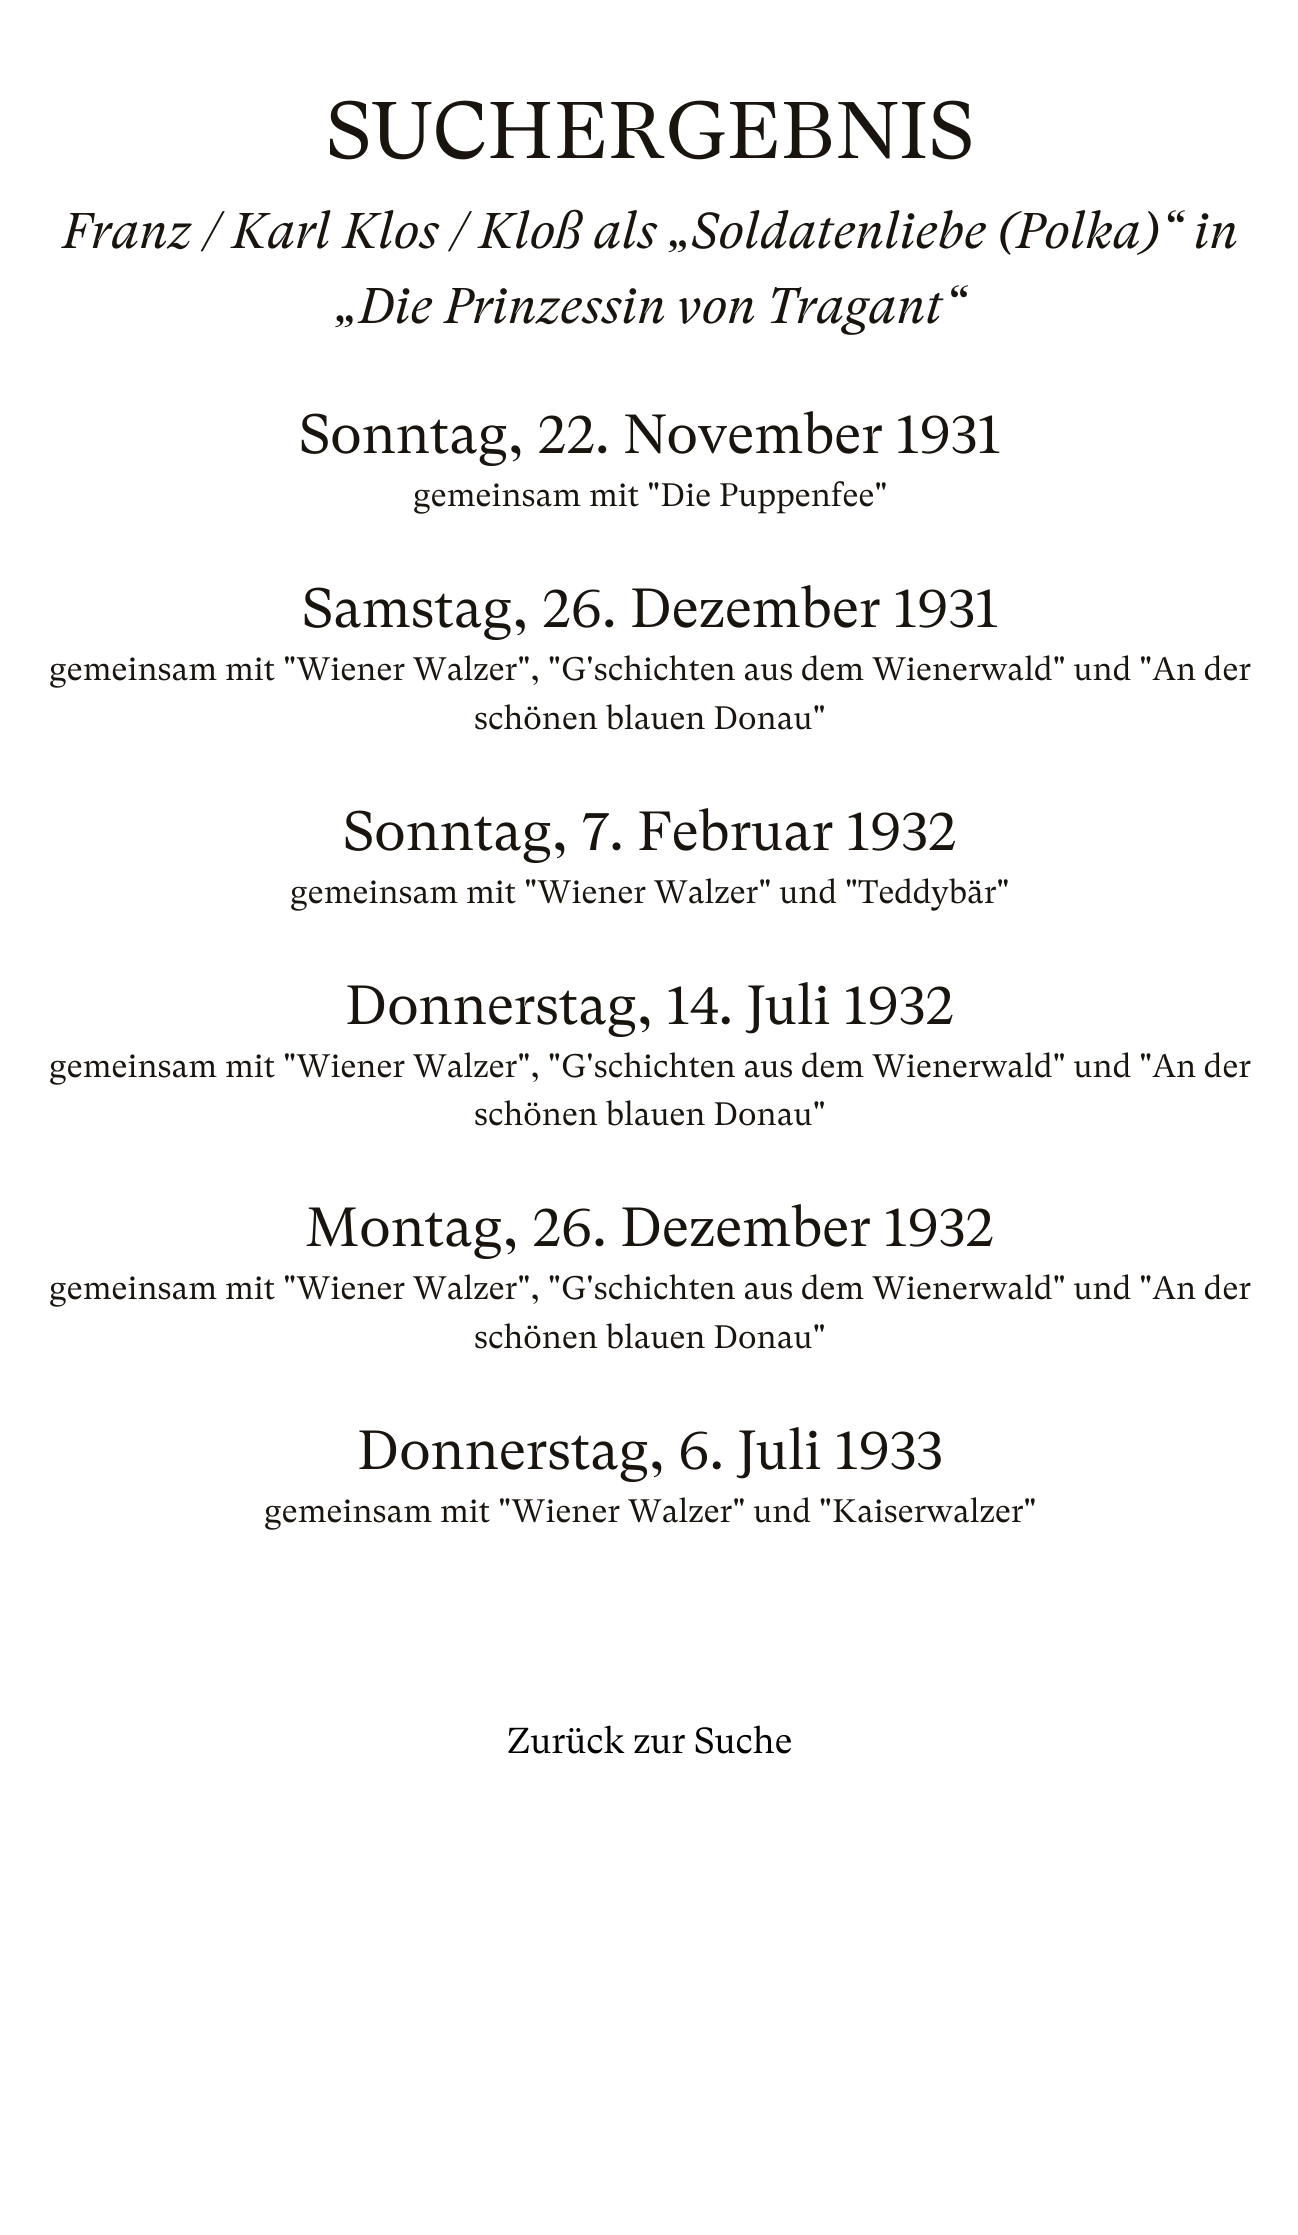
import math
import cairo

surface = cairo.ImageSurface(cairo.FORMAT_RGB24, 1298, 2235)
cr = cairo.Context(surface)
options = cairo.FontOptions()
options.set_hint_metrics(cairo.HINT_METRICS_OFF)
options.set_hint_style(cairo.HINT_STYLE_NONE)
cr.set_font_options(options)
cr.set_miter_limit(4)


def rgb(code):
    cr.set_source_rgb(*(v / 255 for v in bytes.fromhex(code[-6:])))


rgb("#ffffff")
cr.paint()
cr.select_font_face("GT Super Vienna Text")
cr.set_font_size(80)
rgb("#19140e")
cr.move_to(326, 158)
cr.show_text("SUCHERGEBNIS")
cr.select_font_face("GT Super Vienna Text", cairo.FONT_SLANT_ITALIC)
cr.set_font_size(50)
cr.move_to(62, 248)
cr.show_text("Franz / Karl Klos / Kloß als „Soldatenliebe (Polka)“ in")
cr.move_to(335, 323)
cr.show_text("„Die Prinzessin von Tragant“")
cr.select_font_face("GT Super Vienna Text")
cr.set_font_size(55)
cr.move_to(299, 453)
cr.show_text("Sonntag, 22. November 1931")
cr.set_font_size(32.4)
cr.move_to(413, 506)
cr.show_text("gemeinsam mit \"Die Puppenfee\"")
cr.set_font_size(55)
cr.move_to(302, 627)
cr.show_text("Samstag, 26. Dezember 1931")
cr.set_font_size(32.4)
cr.move_to(49, 680)
cr.show_text("gemeinsam mit \"Wiener Walzer\", \"G'schichten aus dem Wienerwald\" und \"An der")
cr.move_to(474, 729)
cr.show_text("schönen blauen Donau\"")
cr.set_font_size(55)
cr.move_to(343, 850)
cr.show_text("Sonntag, 7. Februar 1932")
cr.set_font_size(32.4)
cr.move_to(290, 903)
cr.show_text("gemeinsam mit \"Wiener Walzer\" und \"Teddybär\"")
cr.set_font_size(55)
cr.move_to(345, 1024)
cr.show_text("Donnerstag, 14. Juli 1932")
cr.set_font_size(32.4)
cr.move_to(49, 1077)
cr.show_text("gemeinsam mit \"Wiener Walzer\", \"G'schichten aus dem Wienerwald\" und \"An der")
cr.move_to(474, 1125)
cr.show_text("schönen blauen Donau\"")
cr.set_font_size(55)
cr.move_to(305, 1246)
cr.show_text("Montag, 26. Dezember 1932")
cr.set_font_size(32.4)
cr.move_to(49, 1299)
cr.show_text("gemeinsam mit \"Wiener Walzer\", \"G'schichten aus dem Wienerwald\" und \"An der")
cr.move_to(474, 1348)
cr.show_text("schönen blauen Donau\"")
cr.set_font_size(55)
cr.move_to(357, 1469)
cr.show_text("Donnerstag, 6. Juli 1933")
cr.set_font_size(32.4)
cr.move_to(264, 1522)
cr.show_text("gemeinsam mit \"Wiener Walzer\" und \"Kaiserwalzer\"")
cr.set_font_size(36)
rgb("#000000")
cr.move_to(507, 1753)
cr.show_text("Zurück zur Suche")
surface.write_to_png("page.png")
